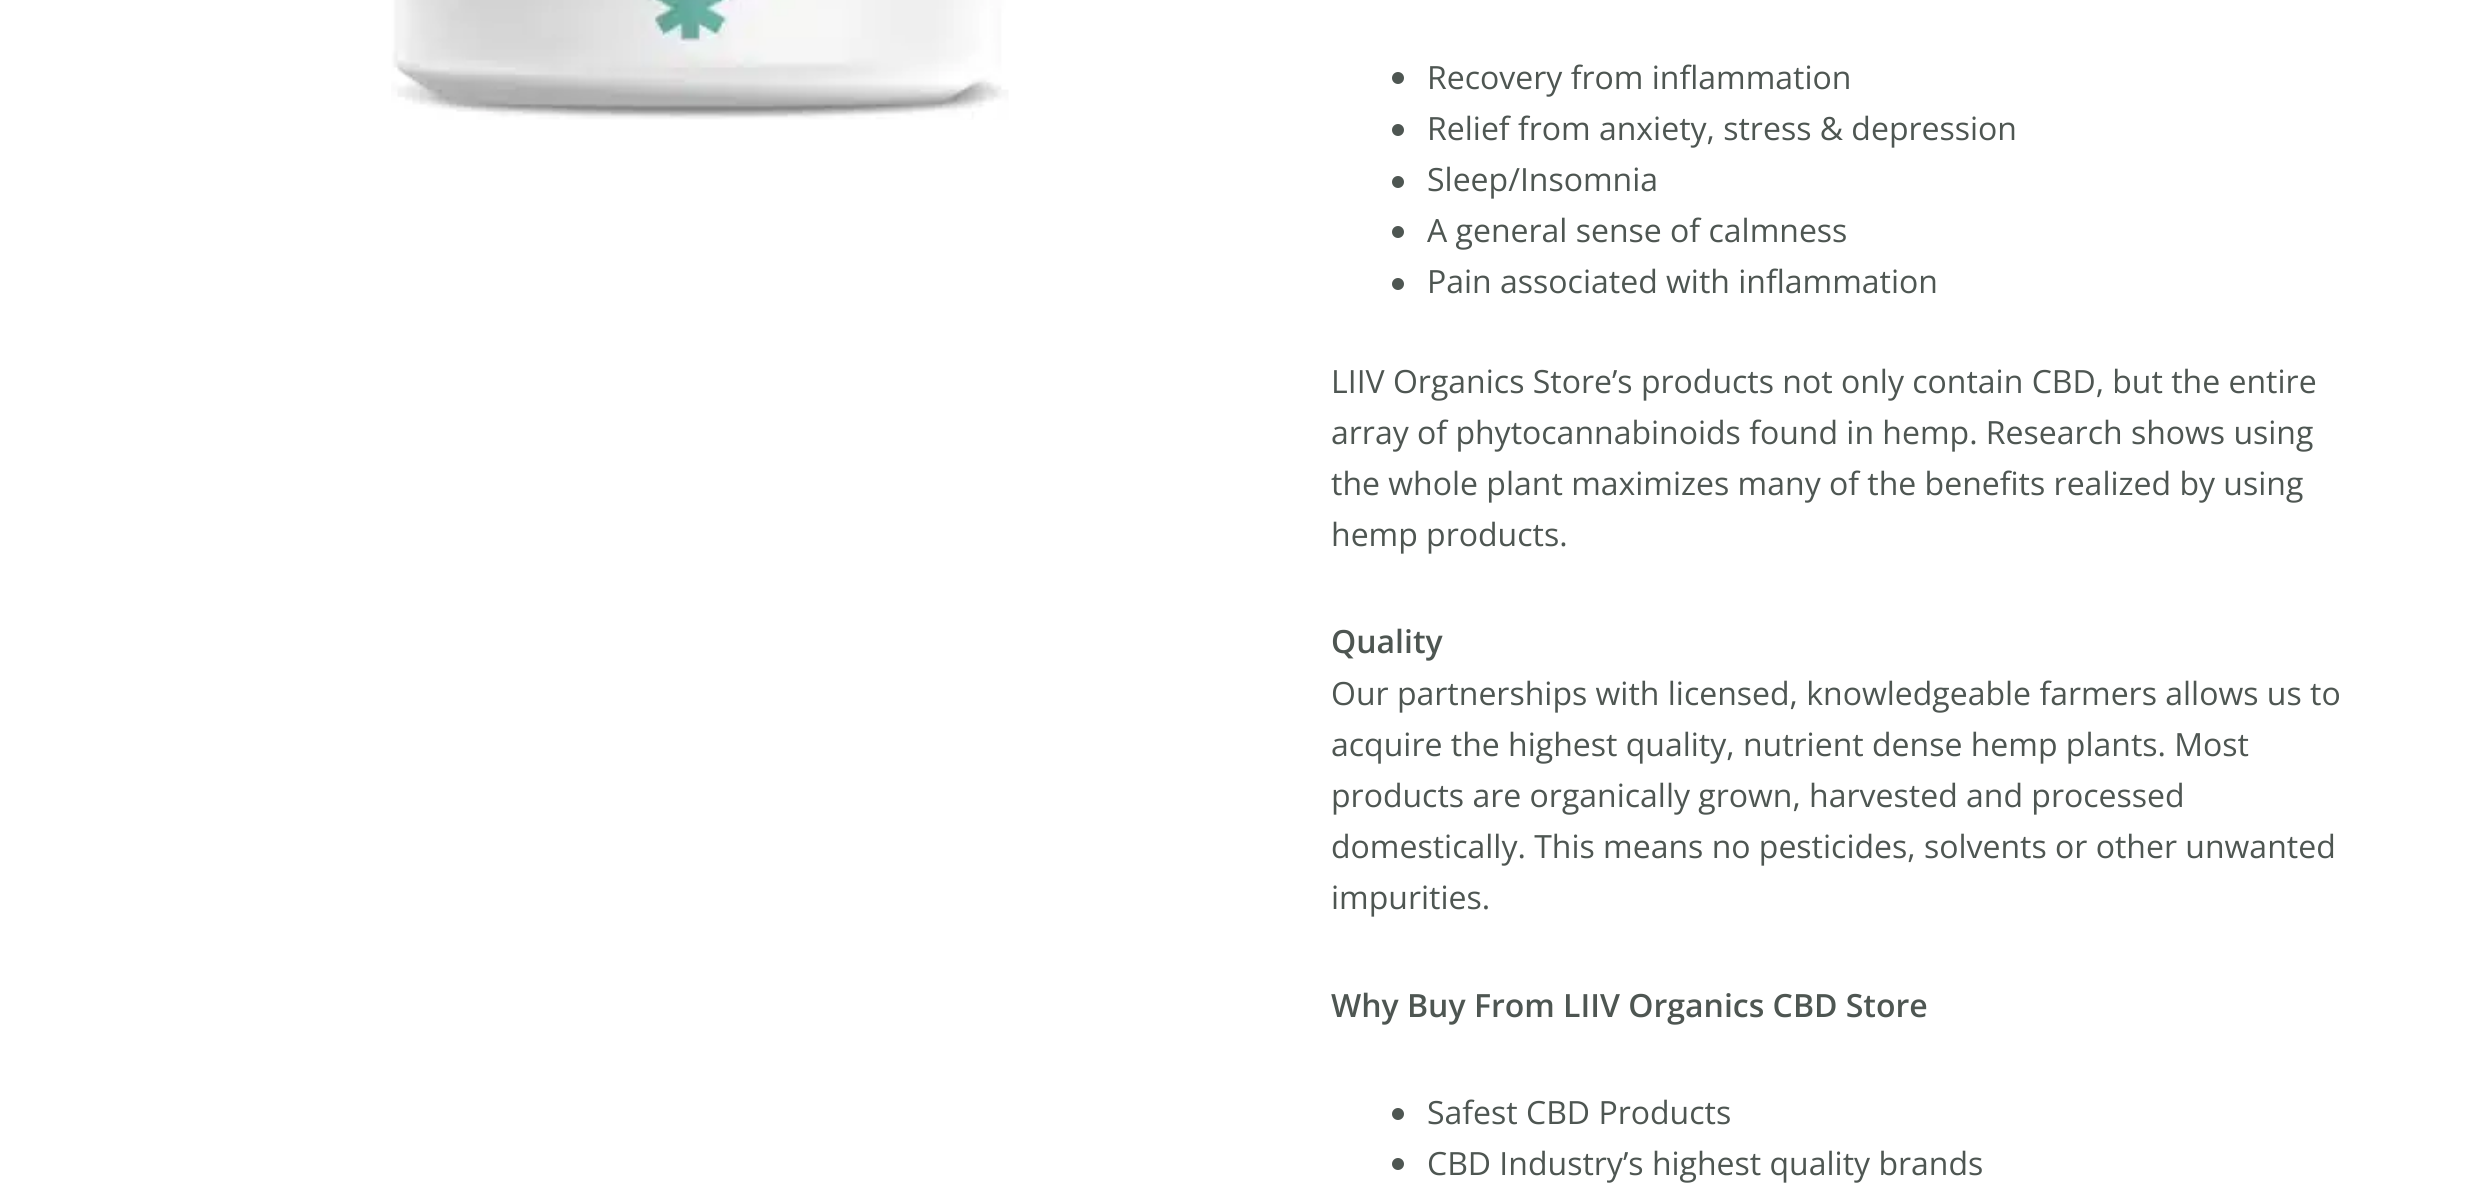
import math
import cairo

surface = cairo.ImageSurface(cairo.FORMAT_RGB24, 2486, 1185)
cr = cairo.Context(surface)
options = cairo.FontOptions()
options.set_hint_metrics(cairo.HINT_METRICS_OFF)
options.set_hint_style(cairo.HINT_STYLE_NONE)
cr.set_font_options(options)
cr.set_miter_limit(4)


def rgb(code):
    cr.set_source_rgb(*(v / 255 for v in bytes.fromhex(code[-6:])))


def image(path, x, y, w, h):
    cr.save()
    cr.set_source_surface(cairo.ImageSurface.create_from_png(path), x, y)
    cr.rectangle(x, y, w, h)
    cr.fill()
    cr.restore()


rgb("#ffffff")
cr.paint()
image("img/1.png", 391, 0, 618, 120)
rgb("#4e5652")
cr.arc(1398, 78, 6, 0, 2 * math.pi)
cr.fill()
cr.arc(1398, 130, 6, 0, 2 * math.pi)
cr.fill()
cr.arc(1398, 182, 6, 0, 2 * math.pi)
cr.fill()
cr.arc(1398, 232, 6, 0, 2 * math.pi)
cr.fill()
cr.arc(1398, 284, 6, 0, 2 * math.pi)
cr.fill()
cr.arc(1398, 1114, 6, 0, 2 * math.pi)
cr.fill()
cr.arc(1398, 1164, 6, 0, 2 * math.pi)
cr.fill()
cr.select_font_face("Open Sans")
cr.set_font_size(32)
for x, y, s in [
    (1427, 89, "Recovery from inflammation"),
    (1427, 140, "Relief from anxiety, stress & depression"),
    (1427, 191, "Sleep/Insomnia"),
    (1427, 242, "A general sense of calmness"),
    (1427, 293, "Pain associated with inflammation"),
    (1331, 393, "LIIV Organics Store’s products not only contain CBD, but the entire"),
    (1331, 444, "array of phytocannabinoids found in hemp. Research shows using"),
    (1331, 495, "the whole plant maximizes many of the benefits realized by using"),
    (1331, 546, "hemp products."),
]:
    cr.move_to(x, y)
    cr.show_text(s)
cr.select_font_face("Open Sans SemiBold")
cr.move_to(1331, 653)
cr.show_text("Quality")
cr.select_font_face("Open Sans")
for x, y, s in [
    (1331, 705, "Our partnerships with licensed, knowledgeable farmers allows us to"),
    (1331, 756, "acquire the highest quality, nutrient dense hemp plants. Most"),
    (1331, 807, "products are organically grown, harvested and processed"),
    (1331, 858, "domestically. This means no pesticides, solvents or other unwanted"),
    (1331, 909, "impurities."),
]:
    cr.move_to(x, y)
    cr.show_text(s)
cr.select_font_face("Open Sans SemiBold")
cr.move_to(1331, 1017)
cr.show_text("Why Buy From LIIV Organics CBD Store")
cr.select_font_face("Open Sans")
cr.move_to(1427, 1124)
cr.show_text("Safest CBD Products")
cr.move_to(1427, 1175)
cr.show_text("CBD Industry’s highest quality brands")
surface.write_to_png("page.png")
